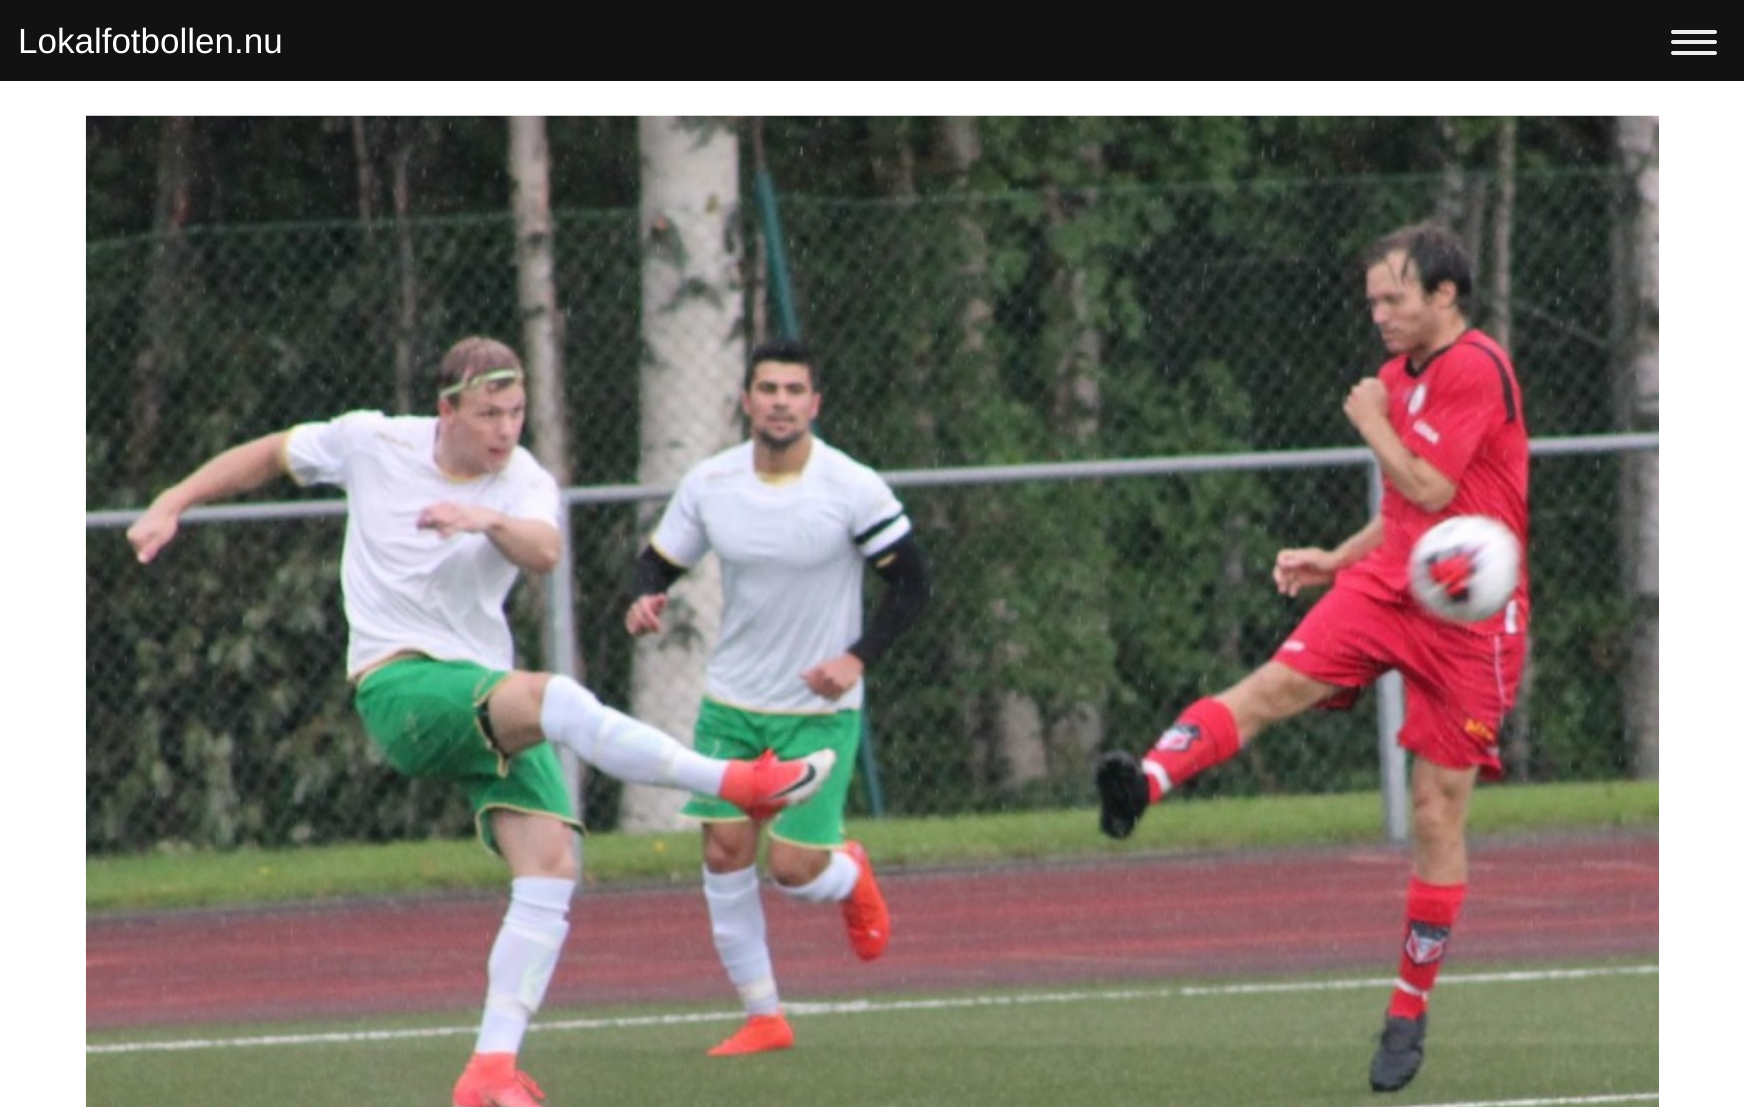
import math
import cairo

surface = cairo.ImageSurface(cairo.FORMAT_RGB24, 1744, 1107)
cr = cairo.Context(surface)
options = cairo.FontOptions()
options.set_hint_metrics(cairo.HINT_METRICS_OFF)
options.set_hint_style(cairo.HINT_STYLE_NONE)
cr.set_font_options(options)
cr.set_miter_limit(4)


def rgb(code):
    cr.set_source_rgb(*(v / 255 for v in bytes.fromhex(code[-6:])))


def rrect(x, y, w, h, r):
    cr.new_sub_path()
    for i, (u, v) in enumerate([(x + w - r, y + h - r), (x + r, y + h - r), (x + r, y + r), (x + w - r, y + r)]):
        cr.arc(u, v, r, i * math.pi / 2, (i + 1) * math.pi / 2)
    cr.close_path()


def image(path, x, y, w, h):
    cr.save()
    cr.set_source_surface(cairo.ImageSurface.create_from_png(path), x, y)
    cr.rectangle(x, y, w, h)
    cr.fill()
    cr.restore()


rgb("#ffffff")
cr.paint()
rgb("#121212")
cr.rectangle(0, 0, 1744, 81)
cr.fill()
rgb("#eeeeee")
rrect(1671, 30, 46, 4, 2)
cr.fill()
rrect(1671, 40, 46, 4, 2)
cr.fill()
rrect(1671, 51, 46, 4, 2)
cr.fill()
image("img/1.png", 85, 115, 1574, 992)
cr.select_font_face("Liberation Sans")
cr.set_font_size(35)
rgb("#ffffff")
cr.move_to(18, 53)
cr.show_text("Lokalfotbollen.nu")
surface.write_to_png("page.png")
